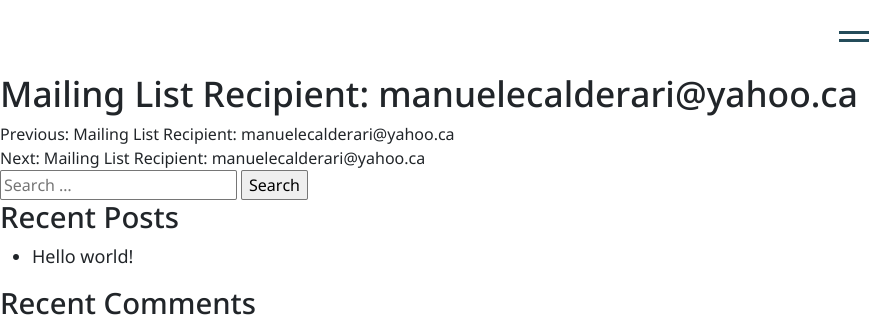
import math
import cairo

surface = cairo.ImageSurface(cairo.FORMAT_RGB24, 889, 322)
cr = cairo.Context(surface)
options = cairo.FontOptions()
options.set_hint_metrics(cairo.HINT_METRICS_OFF)
options.set_hint_style(cairo.HINT_STYLE_NONE)
cr.set_font_options(options)
cr.set_miter_limit(4)


def rgb(code):
    cr.set_source_rgb(*(v / 255 for v in bytes.fromhex(code[-6:])))


def rrect(x, y, w, h, r):
    cr.new_sub_path()
    for i, (u, v) in enumerate([(x + w - r, y + h - r), (x + r, y + h - r), (x + r, y + r), (x + w - r, y + r)]):
        cr.arc(u, v, r, i * math.pi / 2, (i + 1) * math.pi / 2)
    cr.close_path()


rgb("#ffffff")
cr.paint()
rgb("#244c5a")
cr.rectangle(839, 31, 30, 3)
cr.fill()
cr.rectangle(839, 39, 30, 3)
cr.fill()
rrect(0.5, 170.5, 236, 29, 1.5)
rgb("#767676")
cr.set_line_width(1)
cr.stroke()
rgb("#efefef")
rrect(241.5, 170.5, 66, 29, 1.5)
cr.fill_preserve()
rgb("#767676")
cr.stroke()
rgb("#212529")
cr.arc(16, 257, 3, 0, 2 * math.pi)
cr.fill()
cr.select_font_face("Noto Sans Medium")
cr.set_font_size(35.3)
cr.move_to(0, 107)
cr.show_text("Mailing List Recipient: manuelecalderari@yahoo.ca")
cr.select_font_face("Noto Sans")
cr.set_font_size(16)
cr.move_to(0, 140)
cr.show_text("Previous: Mailing List Recipient: manuelecalderari@yahoo.ca")
cr.move_to(0, 164)
cr.show_text("Next: Mailing List Recipient: manuelecalderari@yahoo.ca")
rgb("#757575")
cr.move_to(4, 191)
cr.show_text("Search …")
rgb("#000000")
cr.move_to(249, 191)
cr.show_text("Search")
cr.select_font_face("Noto Sans Medium")
cr.set_font_size(29.25)
rgb("#212529")
cr.move_to(0, 228)
cr.show_text("Recent Posts")
cr.select_font_face("Noto Sans")
cr.set_font_size(18)
cr.move_to(32, 263)
cr.show_text("Hello world!")
cr.select_font_face("Noto Sans Medium")
cr.set_font_size(29.25)
cr.move_to(0, 314)
cr.show_text("Recent Comments")
surface.write_to_png("page.png")
